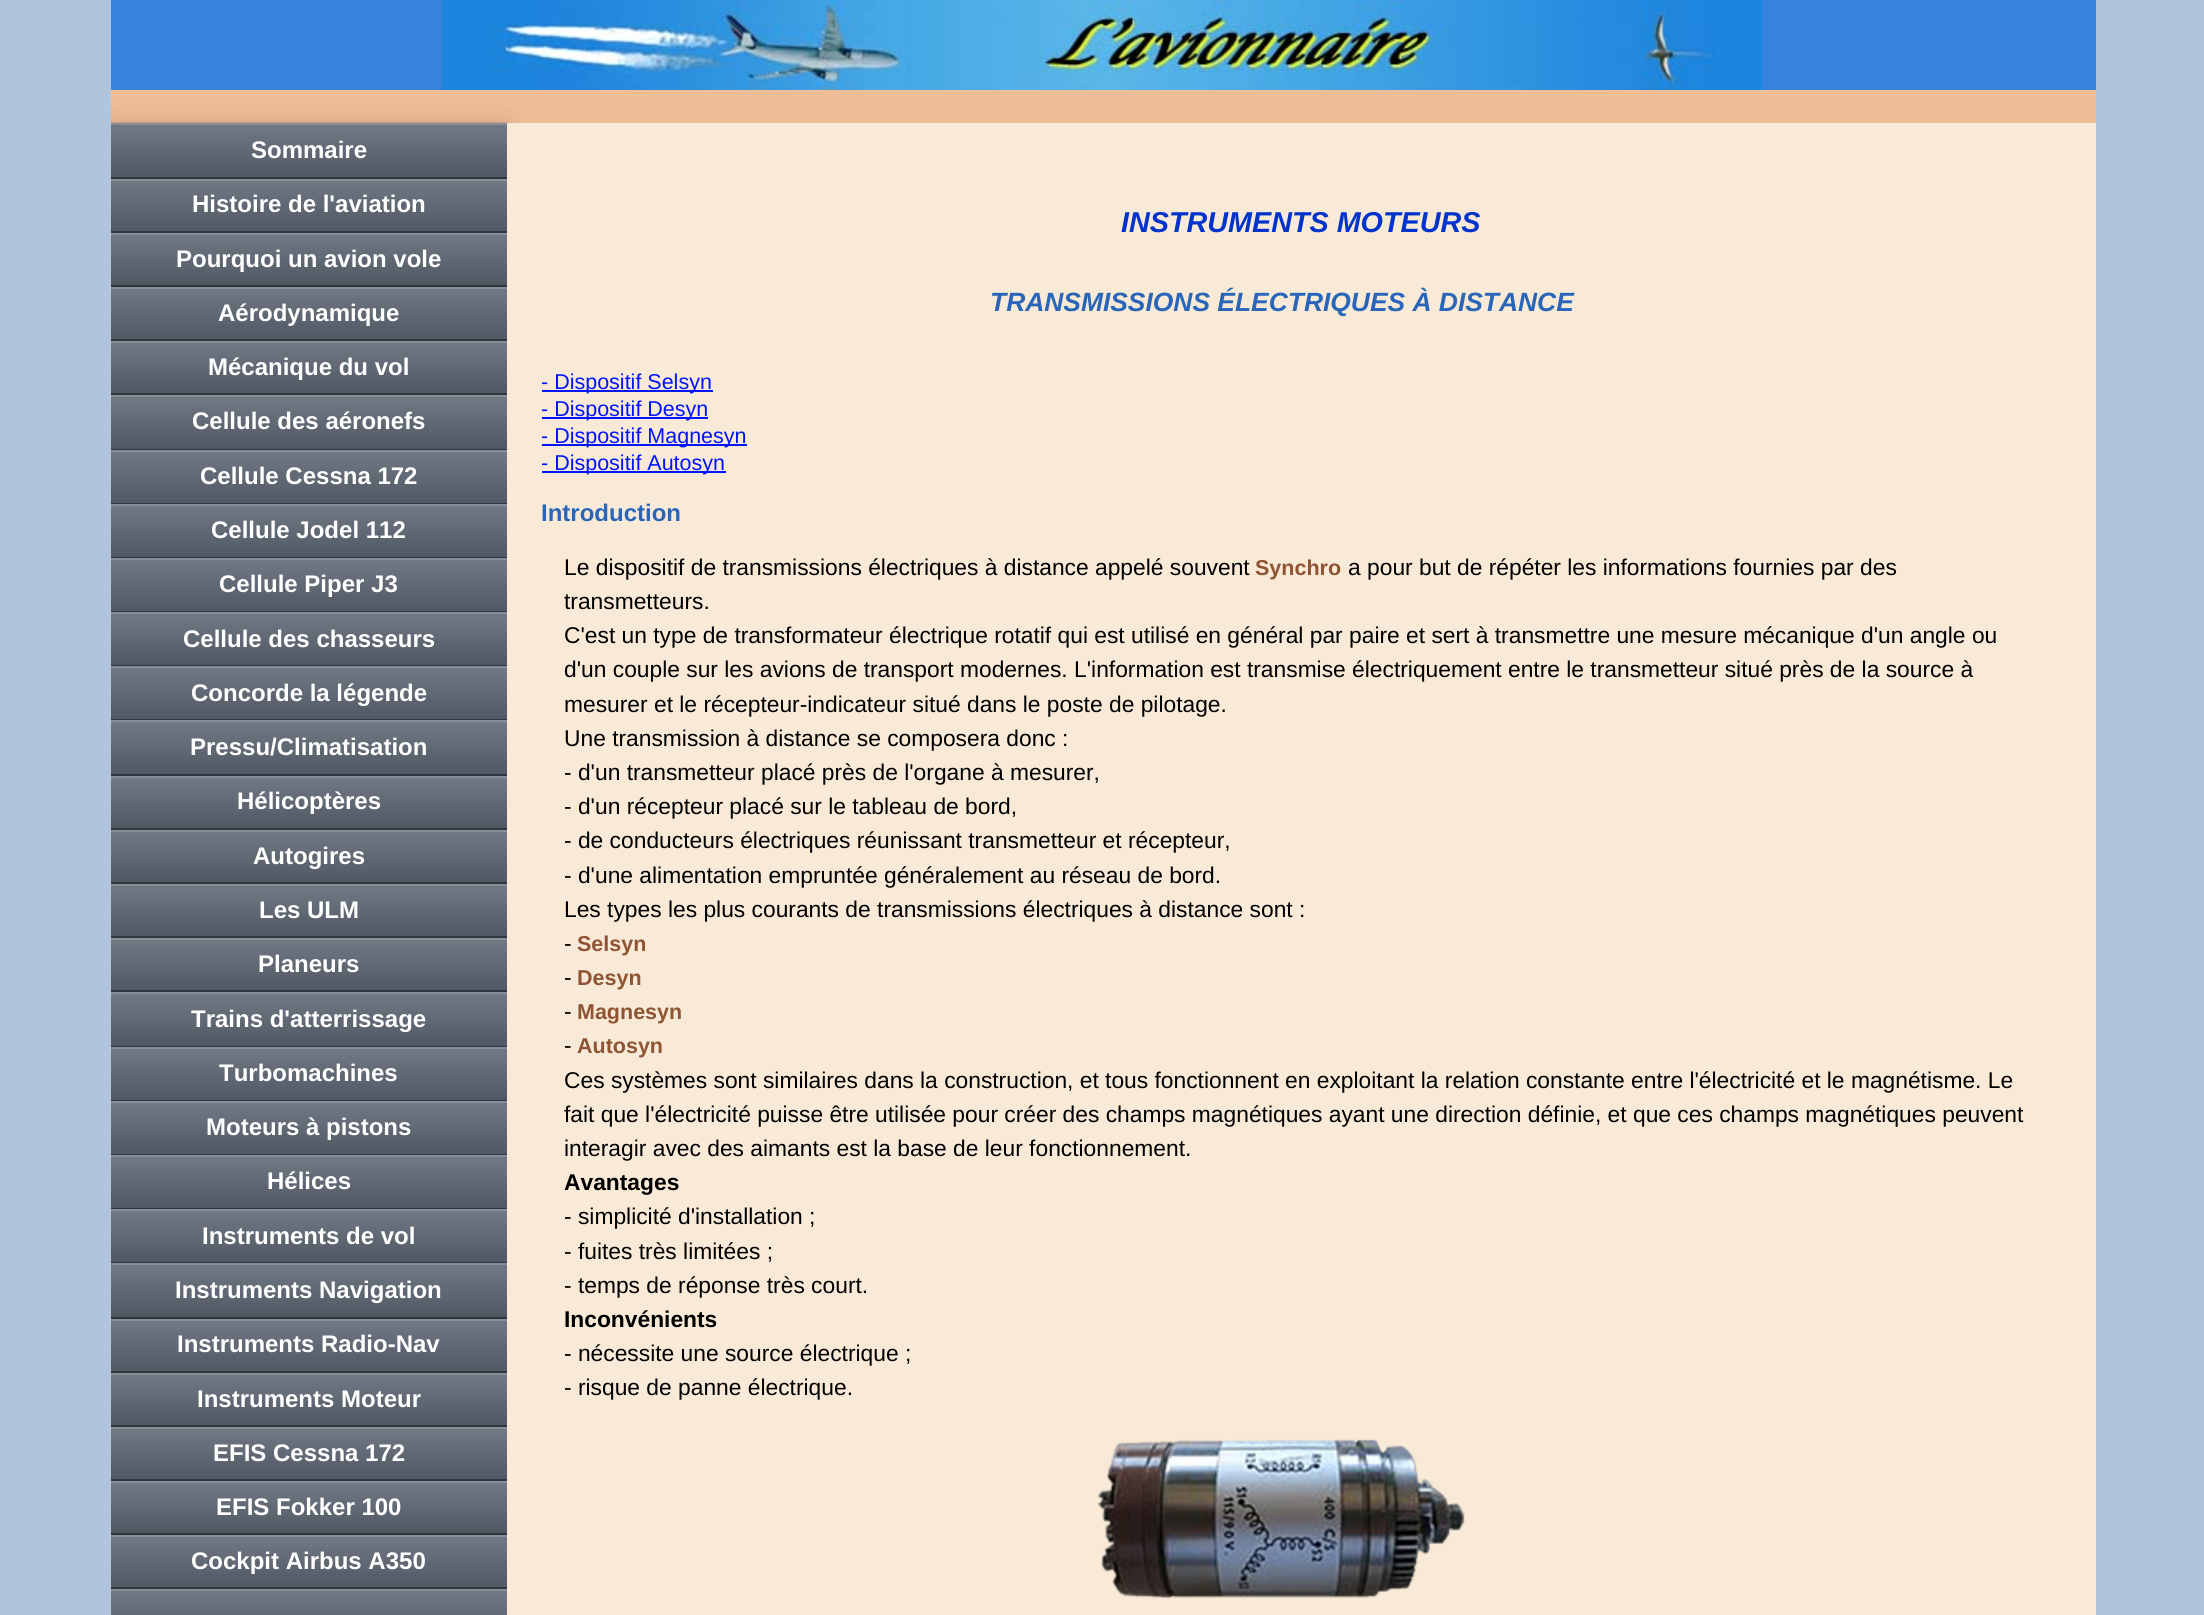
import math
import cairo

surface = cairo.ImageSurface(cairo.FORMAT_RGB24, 2204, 1615)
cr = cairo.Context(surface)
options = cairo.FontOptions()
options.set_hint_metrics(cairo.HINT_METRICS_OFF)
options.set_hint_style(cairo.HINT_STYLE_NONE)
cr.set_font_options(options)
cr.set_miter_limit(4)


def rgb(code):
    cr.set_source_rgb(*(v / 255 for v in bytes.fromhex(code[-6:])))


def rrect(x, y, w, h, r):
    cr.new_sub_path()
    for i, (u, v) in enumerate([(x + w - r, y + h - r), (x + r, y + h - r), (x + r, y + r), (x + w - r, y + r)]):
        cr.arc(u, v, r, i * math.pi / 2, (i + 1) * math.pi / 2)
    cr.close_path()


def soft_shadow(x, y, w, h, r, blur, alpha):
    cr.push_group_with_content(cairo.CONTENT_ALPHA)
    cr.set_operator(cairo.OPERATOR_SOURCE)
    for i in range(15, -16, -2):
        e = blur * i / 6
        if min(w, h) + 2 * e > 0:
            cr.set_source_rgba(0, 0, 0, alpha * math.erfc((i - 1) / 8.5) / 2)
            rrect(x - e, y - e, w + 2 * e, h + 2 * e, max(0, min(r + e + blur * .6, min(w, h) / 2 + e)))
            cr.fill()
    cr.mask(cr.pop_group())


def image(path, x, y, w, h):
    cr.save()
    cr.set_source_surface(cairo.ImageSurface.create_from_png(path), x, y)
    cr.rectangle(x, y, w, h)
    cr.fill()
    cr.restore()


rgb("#b0c4de")
cr.paint()
rgb("#efbe97")
cr.rectangle(111, 90, 1985, 33)
cr.fill()
rgb("#3583dc")
cr.rectangle(111, 0, 1985, 90)
cr.fill()
cr.save()
cr.rectangle(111, 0, 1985, 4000)
cr.clip()
rgb("#000000")
soft_shadow(111, 123, 396, 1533, 0, 13.5, 0.13)
cr.restore()
image("img/1.png", 442, 0, 1321, 90)
cr.save()
cr.rectangle(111, 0, 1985, 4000)
cr.clip()
rgb("#000000")
soft_shadow(111, 125, 396, 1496, 0, 2, 0.73)
cr.restore()
gradient = cairo.LinearGradient(309, 123, 309, 177)
gradient.add_color_stop_rgba(0, 0.447, 0.478, 0.525, 1)
gradient.add_color_stop_rgba(1, 0.314, 0.345, 0.392, 1)
cr.set_source(gradient)
cr.rectangle(111, 125, 396, 52)
cr.fill()
rgb("#878e98")
cr.rectangle(111, 123, 396, 2)
cr.fill()
rgb("#33373d")
cr.rectangle(111, 177, 396, 2)
cr.fill()
gradient = cairo.LinearGradient(309, 178, 309, 231)
gradient.add_color_stop_rgba(0, 0.447, 0.478, 0.525, 1)
gradient.add_color_stop_rgba(1, 0.314, 0.345, 0.392, 1)
cr.set_source(gradient)
cr.rectangle(111, 181, 396, 50)
cr.fill()
rgb("#878e98")
cr.rectangle(111, 179, 396, 2)
cr.fill()
rgb("#33373d")
cr.rectangle(111, 231, 396, 2)
cr.fill()
gradient = cairo.LinearGradient(309, 232, 309, 285)
gradient.add_color_stop_rgba(0, 0.447, 0.478, 0.525, 1)
gradient.add_color_stop_rgba(1, 0.314, 0.345, 0.392, 1)
cr.set_source(gradient)
cr.rectangle(111, 235, 396, 50)
cr.fill()
rgb("#878e98")
cr.rectangle(111, 233, 396, 2)
cr.fill()
rgb("#33373d")
cr.rectangle(111, 285, 396, 2)
cr.fill()
gradient = cairo.LinearGradient(309, 286, 309, 339)
gradient.add_color_stop_rgba(0, 0.447, 0.478, 0.525, 1)
gradient.add_color_stop_rgba(1, 0.314, 0.345, 0.392, 1)
cr.set_source(gradient)
cr.rectangle(111, 289, 396, 50)
cr.fill()
rgb("#878e98")
cr.rectangle(111, 287, 396, 2)
cr.fill()
rgb("#33373d")
cr.rectangle(111, 339, 396, 2)
cr.fill()
gradient = cairo.LinearGradient(309, 340, 309, 393)
gradient.add_color_stop_rgba(0, 0.447, 0.478, 0.525, 1)
gradient.add_color_stop_rgba(1, 0.314, 0.345, 0.392, 1)
cr.set_source(gradient)
cr.rectangle(111, 343, 396, 50)
cr.fill()
rgb("#878e98")
cr.rectangle(111, 341, 396, 2)
cr.fill()
rgb("#33373d")
cr.rectangle(111, 393, 396, 2)
cr.fill()
gradient = cairo.LinearGradient(309, 395, 309, 449)
gradient.add_color_stop_rgba(0, 0.447, 0.478, 0.525, 1)
gradient.add_color_stop_rgba(1, 0.314, 0.345, 0.392, 1)
cr.set_source(gradient)
cr.rectangle(111, 397, 396, 52)
cr.fill()
rgb("#878e98")
cr.rectangle(111, 395, 396, 2)
cr.fill()
rgb("#33373d")
cr.rectangle(111, 449, 396, 1)
cr.fill()
gradient = cairo.LinearGradient(309, 450, 309, 503)
gradient.add_color_stop_rgba(0, 0.447, 0.478, 0.525, 1)
gradient.add_color_stop_rgba(1, 0.314, 0.345, 0.392, 1)
cr.set_source(gradient)
cr.rectangle(111, 452, 396, 51)
cr.fill()
rgb("#878e98")
cr.rectangle(111, 450, 396, 2)
cr.fill()
rgb("#33373d")
cr.rectangle(111, 503, 396, 1)
cr.fill()
gradient = cairo.LinearGradient(309, 504, 309, 557)
gradient.add_color_stop_rgba(0, 0.447, 0.478, 0.525, 1)
gradient.add_color_stop_rgba(1, 0.314, 0.345, 0.392, 1)
cr.set_source(gradient)
cr.rectangle(111, 506, 396, 51)
cr.fill()
rgb("#878e98")
cr.rectangle(111, 504, 396, 2)
cr.fill()
rgb("#33373d")
cr.rectangle(111, 557, 396, 1)
cr.fill()
gradient = cairo.LinearGradient(309, 558, 309, 611)
gradient.add_color_stop_rgba(0, 0.447, 0.478, 0.525, 1)
gradient.add_color_stop_rgba(1, 0.314, 0.345, 0.392, 1)
cr.set_source(gradient)
cr.rectangle(111, 560, 396, 51)
cr.fill()
rgb("#878e98")
cr.rectangle(111, 558, 396, 2)
cr.fill()
rgb("#33373d")
cr.rectangle(111, 611, 396, 1)
cr.fill()
gradient = cairo.LinearGradient(309, 612, 309, 665)
gradient.add_color_stop_rgba(0, 0.447, 0.478, 0.525, 1)
gradient.add_color_stop_rgba(1, 0.314, 0.345, 0.392, 1)
cr.set_source(gradient)
cr.rectangle(111, 614, 396, 51)
cr.fill()
rgb("#878e98")
cr.rectangle(111, 612, 396, 2)
cr.fill()
rgb("#33373d")
cr.rectangle(111, 665, 396, 1)
cr.fill()
gradient = cairo.LinearGradient(309, 666, 309, 719)
gradient.add_color_stop_rgba(0, 0.447, 0.478, 0.525, 1)
gradient.add_color_stop_rgba(1, 0.314, 0.345, 0.392, 1)
cr.set_source(gradient)
cr.rectangle(111, 668, 396, 51)
cr.fill()
rgb("#878e98")
cr.rectangle(111, 666, 396, 2)
cr.fill()
rgb("#33373d")
cr.rectangle(111, 719, 396, 1)
cr.fill()
gradient = cairo.LinearGradient(309, 720, 309, 774)
gradient.add_color_stop_rgba(0, 0.447, 0.478, 0.525, 1)
gradient.add_color_stop_rgba(1, 0.314, 0.345, 0.392, 1)
cr.set_source(gradient)
cr.rectangle(111, 722, 396, 52)
cr.fill()
rgb("#878e98")
cr.rectangle(111, 720, 396, 2)
cr.fill()
rgb("#33373d")
cr.rectangle(111, 774, 396, 2)
cr.fill()
gradient = cairo.LinearGradient(309, 776, 309, 828)
gradient.add_color_stop_rgba(0, 0.447, 0.478, 0.525, 1)
gradient.add_color_stop_rgba(1, 0.314, 0.345, 0.392, 1)
cr.set_source(gradient)
cr.rectangle(111, 778, 396, 50)
cr.fill()
rgb("#878e98")
cr.rectangle(111, 776, 396, 2)
cr.fill()
rgb("#33373d")
cr.rectangle(111, 828, 396, 2)
cr.fill()
gradient = cairo.LinearGradient(309, 830, 309, 882)
gradient.add_color_stop_rgba(0, 0.447, 0.478, 0.525, 1)
gradient.add_color_stop_rgba(1, 0.314, 0.345, 0.392, 1)
cr.set_source(gradient)
cr.rectangle(111, 832, 396, 50)
cr.fill()
rgb("#878e98")
cr.rectangle(111, 830, 396, 2)
cr.fill()
rgb("#33373d")
cr.rectangle(111, 882, 396, 2)
cr.fill()
gradient = cairo.LinearGradient(309, 884, 309, 936)
gradient.add_color_stop_rgba(0, 0.447, 0.478, 0.525, 1)
gradient.add_color_stop_rgba(1, 0.314, 0.345, 0.392, 1)
cr.set_source(gradient)
cr.rectangle(111, 886, 396, 50)
cr.fill()
rgb("#878e98")
cr.rectangle(111, 884, 396, 2)
cr.fill()
rgb("#33373d")
cr.rectangle(111, 936, 396, 2)
cr.fill()
gradient = cairo.LinearGradient(309, 938, 309, 990)
gradient.add_color_stop_rgba(0, 0.447, 0.478, 0.525, 1)
gradient.add_color_stop_rgba(1, 0.314, 0.345, 0.392, 1)
cr.set_source(gradient)
cr.rectangle(111, 940, 396, 50)
cr.fill()
rgb("#878e98")
cr.rectangle(111, 938, 396, 2)
cr.fill()
rgb("#33373d")
cr.rectangle(111, 990, 396, 2)
cr.fill()
gradient = cairo.LinearGradient(309, 992, 309, 1046)
gradient.add_color_stop_rgba(0, 0.447, 0.478, 0.525, 1)
gradient.add_color_stop_rgba(1, 0.314, 0.345, 0.392, 1)
cr.set_source(gradient)
cr.rectangle(111, 994, 396, 52)
cr.fill()
rgb("#878e98")
cr.rectangle(111, 992, 396, 2)
cr.fill()
rgb("#33373d")
cr.rectangle(111, 1046, 396, 1)
cr.fill()
gradient = cairo.LinearGradient(309, 1047, 309, 1100)
gradient.add_color_stop_rgba(0, 0.447, 0.478, 0.525, 1)
gradient.add_color_stop_rgba(1, 0.314, 0.345, 0.392, 1)
cr.set_source(gradient)
cr.rectangle(111, 1049, 396, 51)
cr.fill()
rgb("#878e98")
cr.rectangle(111, 1047, 396, 2)
cr.fill()
rgb("#33373d")
cr.rectangle(111, 1100, 396, 1)
cr.fill()
gradient = cairo.LinearGradient(309, 1101, 309, 1154)
gradient.add_color_stop_rgba(0, 0.447, 0.478, 0.525, 1)
gradient.add_color_stop_rgba(1, 0.314, 0.345, 0.392, 1)
cr.set_source(gradient)
cr.rectangle(111, 1103, 396, 51)
cr.fill()
rgb("#878e98")
cr.rectangle(111, 1101, 396, 2)
cr.fill()
rgb("#33373d")
cr.rectangle(111, 1154, 396, 1)
cr.fill()
gradient = cairo.LinearGradient(309, 1155, 309, 1208)
gradient.add_color_stop_rgba(0, 0.447, 0.478, 0.525, 1)
gradient.add_color_stop_rgba(1, 0.314, 0.345, 0.392, 1)
cr.set_source(gradient)
cr.rectangle(111, 1157, 396, 51)
cr.fill()
rgb("#878e98")
cr.rectangle(111, 1155, 396, 2)
cr.fill()
rgb("#33373d")
cr.rectangle(111, 1208, 396, 1)
cr.fill()
gradient = cairo.LinearGradient(309, 1209, 309, 1262)
gradient.add_color_stop_rgba(0, 0.447, 0.478, 0.525, 1)
gradient.add_color_stop_rgba(1, 0.314, 0.345, 0.392, 1)
cr.set_source(gradient)
cr.rectangle(111, 1211, 396, 51)
cr.fill()
rgb("#878e98")
cr.rectangle(111, 1209, 396, 2)
cr.fill()
rgb("#33373d")
cr.rectangle(111, 1262, 396, 1)
cr.fill()
gradient = cairo.LinearGradient(309, 1263, 309, 1317)
gradient.add_color_stop_rgba(0, 0.447, 0.478, 0.525, 1)
gradient.add_color_stop_rgba(1, 0.314, 0.345, 0.392, 1)
cr.set_source(gradient)
cr.rectangle(111, 1265, 396, 52)
cr.fill()
rgb("#878e98")
cr.rectangle(111, 1263, 396, 2)
cr.fill()
rgb("#33373d")
cr.rectangle(111, 1317, 396, 2)
cr.fill()
gradient = cairo.LinearGradient(309, 1319, 309, 1371)
gradient.add_color_stop_rgba(0, 0.447, 0.478, 0.525, 1)
gradient.add_color_stop_rgba(1, 0.314, 0.345, 0.392, 1)
cr.set_source(gradient)
cr.rectangle(111, 1321, 396, 50)
cr.fill()
rgb("#878e98")
cr.rectangle(111, 1319, 396, 2)
cr.fill()
rgb("#33373d")
cr.rectangle(111, 1371, 396, 2)
cr.fill()
gradient = cairo.LinearGradient(309, 1373, 309, 1425)
gradient.add_color_stop_rgba(0, 0.447, 0.478, 0.525, 1)
gradient.add_color_stop_rgba(1, 0.314, 0.345, 0.392, 1)
cr.set_source(gradient)
cr.rectangle(111, 1375, 396, 50)
cr.fill()
rgb("#878e98")
cr.rectangle(111, 1373, 396, 2)
cr.fill()
rgb("#33373d")
cr.rectangle(111, 1425, 396, 2)
cr.fill()
gradient = cairo.LinearGradient(309, 1427, 309, 1479)
gradient.add_color_stop_rgba(0, 0.447, 0.478, 0.525, 1)
gradient.add_color_stop_rgba(1, 0.314, 0.345, 0.392, 1)
cr.set_source(gradient)
cr.rectangle(111, 1429, 396, 50)
cr.fill()
rgb("#878e98")
cr.rectangle(111, 1427, 396, 2)
cr.fill()
rgb("#33373d")
cr.rectangle(111, 1479, 396, 2)
cr.fill()
gradient = cairo.LinearGradient(309, 1481, 309, 1533)
gradient.add_color_stop_rgba(0, 0.447, 0.478, 0.525, 1)
gradient.add_color_stop_rgba(1, 0.314, 0.345, 0.392, 1)
cr.set_source(gradient)
cr.rectangle(111, 1483, 396, 50)
cr.fill()
rgb("#878e98")
cr.rectangle(111, 1481, 396, 2)
cr.fill()
rgb("#33373d")
cr.rectangle(111, 1533, 396, 2)
cr.fill()
gradient = cairo.LinearGradient(309, 1535, 309, 1587)
gradient.add_color_stop_rgba(0, 0.447, 0.478, 0.525, 1)
gradient.add_color_stop_rgba(1, 0.314, 0.345, 0.392, 1)
cr.set_source(gradient)
cr.rectangle(111, 1537, 396, 50)
cr.fill()
rgb("#878e98")
cr.rectangle(111, 1535, 396, 2)
cr.fill()
rgb("#33373d")
cr.rectangle(111, 1587, 396, 2)
cr.fill()
gradient = cairo.LinearGradient(309, 1589, 309, 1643)
gradient.add_color_stop_rgba(0, 0.447, 0.478, 0.525, 1)
gradient.add_color_stop_rgba(1, 0.314, 0.345, 0.392, 1)
cr.set_source(gradient)
cr.rectangle(111, 1591, 396, 24)
cr.fill()
for x, y, w, h, color in [
    (111, 1589, 396, 2, "#878e98"),
    (507, 123, 1589, 1492, "#f8ead7"),
    (542, 390, 171, 2, "#0014ff"),
    (542, 417, 166, 2, "#0014ff"),
    (542, 444, 205, 2, "#0014ff"),
    (542, 471, 184, 2, "#0014ff"),
]:
    rgb(color)
    cr.rectangle(x, y, w, h)
    cr.fill()
image("img/2.png", 1097, 1439, 368, 159)
cr.select_font_face("Liberation Sans", cairo.FONT_SLANT_NORMAL, cairo.FONT_WEIGHT_BOLD)
cr.set_font_size(24)
rgb("#ffffff")
for x, y, s in [
    (251, 158, "Sommaire"),
    (192, 212, "Histoire de l'aviation"),
    (176, 267, "Pourquoi un avion vole"),
    (218, 321, "Aérodynamique"),
    (208, 375, "Mécanique du vol"),
    (192, 429, "Cellule des aéronefs"),
    (200, 484, "Cellule Cessna 172"),
    (211, 538, "Cellule Jodel 112"),
    (219, 592, "Cellule Piper J3"),
    (183, 647, "Cellule des chasseurs"),
    (191, 701, "Concorde la légende"),
    (190, 755, "Pressu/Climatisation"),
    (237, 809, "Hélicoptères"),
    (253, 864, "Autogires"),
    (259, 918, "Les ULM"),
    (258, 972, "Planeurs"),
    (191, 1027, "Trains d'atterrissage"),
    (219, 1081, "Turbomachines"),
    (206, 1135, "Moteurs à pistons"),
    (267, 1189, "Hélices"),
    (202, 1244, "Instruments de vol"),
    (175, 1298, "Instruments Navigation"),
    (177, 1352, "Instruments Radio-Nav"),
    (197, 1407, "Instruments Moteur"),
    (213, 1461, "EFIS Cessna 172"),
    (216, 1515, "EFIS Fokker 100"),
    (191, 1569, "Cockpit Airbus A350"),
]:
    cr.move_to(x, y)
    cr.show_text(s)
cr.select_font_face("Liberation Sans", cairo.FONT_SLANT_ITALIC, cairo.FONT_WEIGHT_BOLD)
cr.set_font_size(28.75)
rgb("#0033cc")
cr.move_to(1121, 232)
cr.show_text("INSTRUMENTS MOTEURS")
cr.set_font_size(26.4)
rgb("#2966b9")
cr.move_to(990, 311)
cr.show_text("TRANSMISSIONS ÉLECTRIQUES À DISTANCE")
cr.select_font_face("Liberation Sans")
cr.set_font_size(21.5)
rgb("#0014ff")
for x, y, s in [
    (541, 389, "- Dispositif Selsyn"),
    (541, 416, "- Dispositif Desyn"),
    (541, 443, "- Dispositif Magnesyn"),
    (541, 470, "- Dispositif Autosyn"),
]:
    cr.move_to(x, y)
    cr.show_text(s)
cr.select_font_face("Liberation Sans", cairo.FONT_SLANT_NORMAL, cairo.FONT_WEIGHT_BOLD)
cr.set_font_size(24)
rgb("#2966b9")
cr.move_to(541, 521)
cr.show_text("Introduction")
cr.select_font_face("Liberation Sans")
cr.set_font_size(22.8)
rgb("#000000")
cr.move_to(564, 575)
cr.show_text("Le dispositif de transmissions électriques à distance appelé souvent")
cr.select_font_face("Liberation Sans", cairo.FONT_SLANT_NORMAL, cairo.FONT_WEIGHT_BOLD)
cr.set_font_size(21.5)
rgb("#8e5434")
cr.move_to(1255, 575)
cr.show_text("Synchro")
cr.select_font_face("Liberation Sans")
cr.set_font_size(22.8)
rgb("#000000")
for x, y, s in [
    (1348, 575, "a pour but de répéter les informations fournies par des"),
    (564, 609, "transmetteurs."),
    (564, 643, "C'est un type de transformateur électrique rotatif qui est utilisé en général par paire et sert à transmettre une mesure mécanique d'un angle ou"),
    (564, 677, "d'un couple sur les avions de transport modernes. L'information est transmise électriquement entre le transmetteur situé près de la source à"),
    (564, 712, "mesurer et le récepteur-indicateur situé dans le poste de pilotage."),
    (564, 746, "Une transmission à distance se composera donc :"),
    (564, 780, "- d'un transmetteur placé près de l'organe à mesurer,"),
    (564, 814, "- d'un récepteur placé sur le tableau de bord,"),
    (564, 848, "- de conducteurs électriques réunissant transmetteur et récepteur,"),
    (564, 883, "- d'une alimentation empruntée généralement au réseau de bord."),
    (564, 917, "Les types les plus courants de transmissions électriques à distance sont :"),
    (564, 951, "-"),
]:
    cr.move_to(x, y)
    cr.show_text(s)
cr.select_font_face("Liberation Sans", cairo.FONT_SLANT_NORMAL, cairo.FONT_WEIGHT_BOLD)
cr.set_font_size(21.5)
rgb("#8e5434")
cr.move_to(577, 951)
cr.show_text("Selsyn")
cr.select_font_face("Liberation Sans")
cr.set_font_size(22.8)
rgb("#000000")
cr.move_to(564, 985)
cr.show_text("-")
cr.select_font_face("Liberation Sans", cairo.FONT_SLANT_NORMAL, cairo.FONT_WEIGHT_BOLD)
cr.set_font_size(21.5)
rgb("#8e5434")
cr.move_to(577, 985)
cr.show_text("Desyn")
cr.select_font_face("Liberation Sans")
cr.set_font_size(22.8)
rgb("#000000")
cr.move_to(564, 1019)
cr.show_text("-")
cr.select_font_face("Liberation Sans", cairo.FONT_SLANT_NORMAL, cairo.FONT_WEIGHT_BOLD)
cr.set_font_size(21.5)
rgb("#8e5434")
cr.move_to(577, 1019)
cr.show_text("Magnesyn")
cr.select_font_face("Liberation Sans")
cr.set_font_size(22.8)
rgb("#000000")
cr.move_to(564, 1053)
cr.show_text("-")
cr.select_font_face("Liberation Sans", cairo.FONT_SLANT_NORMAL, cairo.FONT_WEIGHT_BOLD)
cr.set_font_size(21.5)
rgb("#8e5434")
cr.move_to(577, 1053)
cr.show_text("Autosyn")
cr.select_font_face("Liberation Sans")
cr.set_font_size(22.8)
rgb("#000000")
for x, y, s in [
    (564, 1088, "Ces systèmes sont similaires dans la construction, et tous fonctionnent en exploitant la relation constante entre l'électricité et le magnétisme. Le"),
    (564, 1122, "fait que l'électricité puisse être utilisée pour créer des champs magnétiques ayant une direction définie, et que ces champs magnétiques peuvent"),
    (564, 1156, "interagir avec des aimants est la base de leur fonctionnement."),
]:
    cr.move_to(x, y)
    cr.show_text(s)
cr.select_font_face("Liberation Sans", cairo.FONT_SLANT_NORMAL, cairo.FONT_WEIGHT_BOLD)
cr.move_to(564, 1190)
cr.show_text("Avantages")
cr.select_font_face("Liberation Sans")
for x, y, s in [
    (564, 1224, "- simplicité d'installation ;"),
    (564, 1259, "- fuites très limitées ;"),
    (564, 1293, "- temps de réponse très court."),
]:
    cr.move_to(x, y)
    cr.show_text(s)
cr.select_font_face("Liberation Sans", cairo.FONT_SLANT_NORMAL, cairo.FONT_WEIGHT_BOLD)
cr.move_to(564, 1327)
cr.show_text("Inconvénients")
cr.select_font_face("Liberation Sans")
cr.move_to(564, 1361)
cr.show_text("- nécessite une source électrique ;")
cr.move_to(564, 1395)
cr.show_text("- risque de panne électrique.")
surface.write_to_png("page.png")
